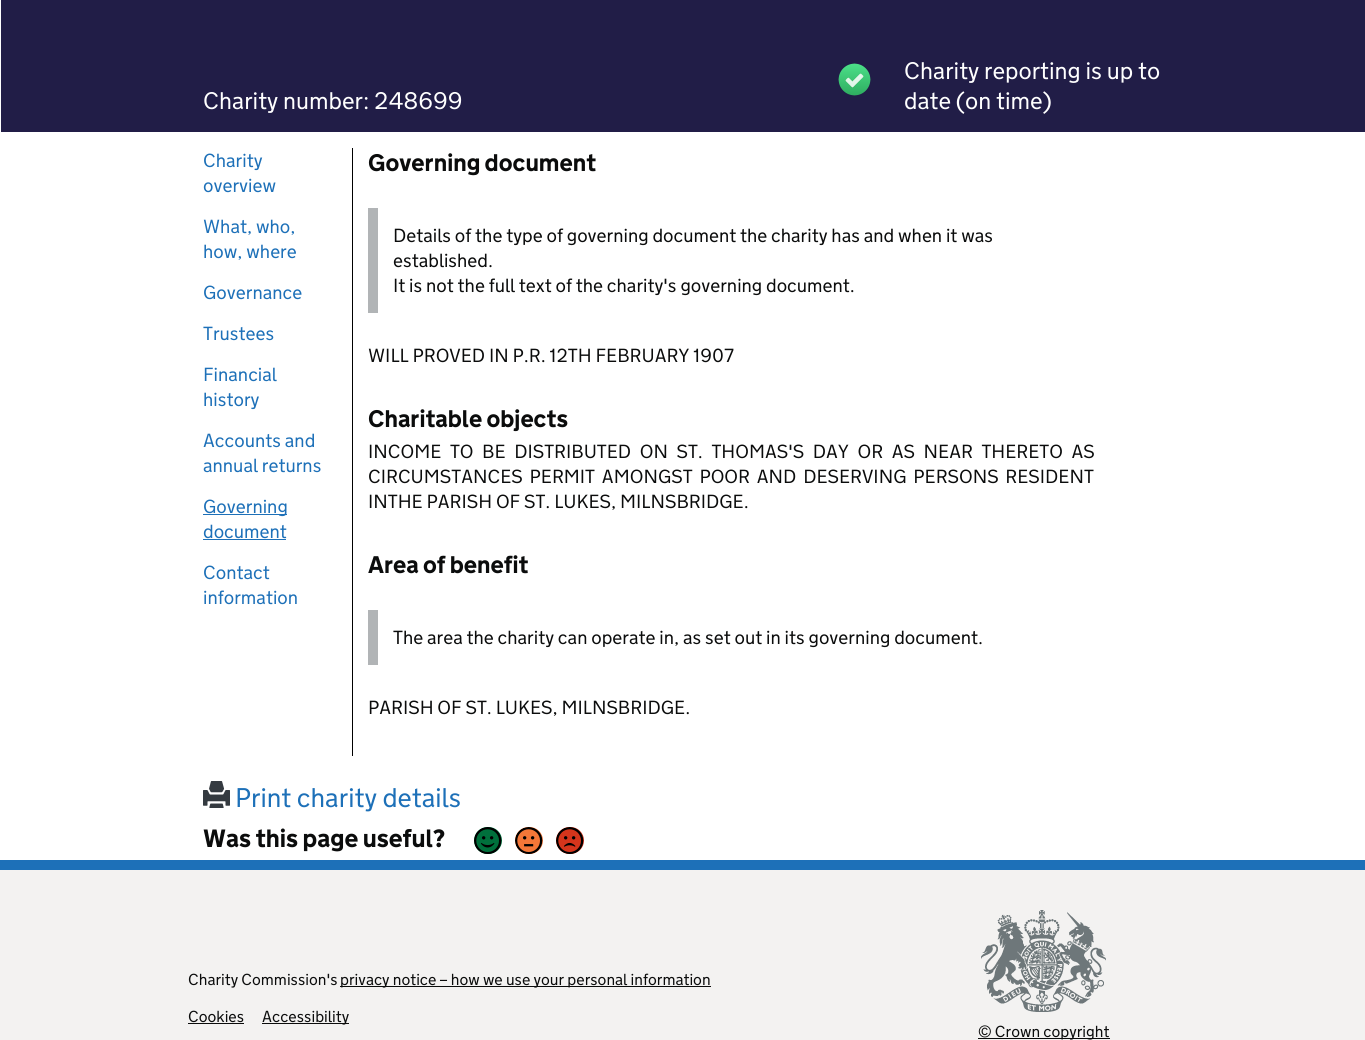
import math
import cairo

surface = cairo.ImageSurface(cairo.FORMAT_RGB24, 1365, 1040)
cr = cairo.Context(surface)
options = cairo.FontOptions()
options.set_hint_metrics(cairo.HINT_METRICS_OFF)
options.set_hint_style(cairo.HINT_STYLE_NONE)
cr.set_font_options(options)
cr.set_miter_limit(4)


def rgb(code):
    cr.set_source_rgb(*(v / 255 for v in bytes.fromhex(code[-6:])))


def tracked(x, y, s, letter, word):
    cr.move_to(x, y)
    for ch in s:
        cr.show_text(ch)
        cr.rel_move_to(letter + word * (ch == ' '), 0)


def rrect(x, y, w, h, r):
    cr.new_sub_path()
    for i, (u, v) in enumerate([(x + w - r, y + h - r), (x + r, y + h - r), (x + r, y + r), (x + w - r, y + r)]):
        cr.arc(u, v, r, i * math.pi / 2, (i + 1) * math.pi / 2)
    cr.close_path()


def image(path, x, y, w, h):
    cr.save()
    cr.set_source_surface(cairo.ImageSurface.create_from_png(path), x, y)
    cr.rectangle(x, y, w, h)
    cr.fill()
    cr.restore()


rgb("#ffffff")
cr.paint()
rgb("#211d47")
cr.rectangle(1, 0, 1364, 132)
cr.fill()
image("img/1.png", 838, 63, 33, 33)
for x, y, w, h, color in [
    (352, 148, 1, 608, "#000000"),
    (203, 514, 84, 1, "#1d70b8"),
    (203, 539, 83, 1, "#1d70b8"),
    (368, 208, 10, 105, "#b1b4b6"),
    (368, 610, 10, 55, "#b1b4b6"),
]:
    rgb(color)
    cr.rectangle(x, y, w, h)
    cr.fill()
image("img/2.png", 203, 781, 27, 27)
rgb("#00703c")
rrect(474, 827, 28, 27, 13.5)
cr.fill()
image("img/3.png", 474, 827, 28, 27)
rgb("#f47738")
rrect(515, 827, 28, 27, 13.5)
cr.fill()
image("img/4.png", 515, 827, 28, 27)
rgb("#d4351c")
rrect(556, 827, 28, 27, 13.5)
cr.fill()
image("img/5.png", 556, 827, 28, 27)
for x, y, w, h, color in [
    (0, 870, 1365, 170, "#f3f2f1"),
    (0, 860, 1365, 10, "#1d70b8"),
    (340, 986, 371, 1, "#0b0c0c"),
    (188, 1023, 56, 1, "#0b0c0c"),
    (262, 1023, 87, 1, "#0b0c0c"),
]:
    rgb(color)
    cr.rectangle(x, y, w, h)
    cr.fill()
image("img/6.png", 981, 910, 125, 102)
cr.rectangle(978, 1038, 132, 1)
cr.fill()
cr.select_font_face("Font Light")
cr.set_font_size(24)
rgb("#ffffff")
for x, y, s in [
    (203, 109, "Charity number: 248699"),
    (904, 79, "Charity reporting is up to"),
    (904, 109, "date (on time)"),
]:
    cr.move_to(x, y)
    cr.show_text(s)
cr.set_font_size(19)
rgb("#1d70b8")
for x, y, s in [
    (203, 167, "Charity"),
    (203, 192, "overview"),
    (203, 233, "What, who,"),
    (203, 258, "how, where"),
    (203, 299, "Governance"),
    (203, 340, "Trustees"),
    (203, 381, "Financial"),
    (203, 406, "history"),
    (203, 447, "Accounts and"),
    (203, 472, "annual returns"),
    (203, 513, "Governing"),
    (203, 538, "document"),
    (203, 579, "Contact"),
    (203, 604, "information"),
]:
    cr.move_to(x, y)
    cr.show_text(s)
cr.select_font_face("Font", cairo.FONT_SLANT_NORMAL, cairo.FONT_WEIGHT_BOLD)
cr.set_font_size(24)
rgb("#0b0c0c")
cr.move_to(368, 171)
cr.show_text("Governing document")
cr.select_font_face("Font Light")
cr.set_font_size(19)
for x, y, s in [
    (393, 242, "Details of the type of governing document the charity has and when it was"),
    (393, 267, "established."),
    (393, 292, "It is not the full text of the charity's governing document."),
    (368, 362, "WILL PROVED IN P.R. 12TH FEBRUARY 1907"),
]:
    cr.move_to(x, y)
    cr.show_text(s)
cr.select_font_face("Font", cairo.FONT_SLANT_NORMAL, cairo.FONT_WEIGHT_BOLD)
cr.set_font_size(24)
cr.move_to(368, 427)
cr.show_text("Charitable objects")
cr.select_font_face("Font Light")
cr.set_font_size(19)
tracked(368, 458, "INCOME TO BE DISTRIBUTED ON ST. THOMAS'S DAY OR AS NEAR THERETO AS", 0, 4.75)
tracked(368, 483, "CIRCUMSTANCES PERMIT AMONGST POOR AND DESERVING PERSONS RESIDENT", 0, 3)
cr.move_to(368, 508)
cr.show_text("INTHE PARISH OF ST. LUKES, MILNSBRIDGE.")
cr.select_font_face("Font", cairo.FONT_SLANT_NORMAL, cairo.FONT_WEIGHT_BOLD)
cr.set_font_size(24)
cr.move_to(368, 573)
cr.show_text("Area of benefit")
cr.select_font_face("Font Light")
cr.set_font_size(19)
cr.move_to(393, 644)
cr.show_text("The area the charity can operate in, as set out in its governing document.")
cr.move_to(368, 714)
cr.show_text("PARISH OF ST. LUKES, MILNSBRIDGE.")
cr.set_font_size(27)
rgb("#1d70b8")
cr.move_to(235, 807)
cr.show_text("Print charity details")
cr.select_font_face("Font", cairo.FONT_SLANT_NORMAL, cairo.FONT_WEIGHT_BOLD)
cr.set_font_size(25)
rgb("#0b0c0c")
cr.move_to(203, 847)
cr.show_text("Was this page useful?")
cr.select_font_face("Font Light")
cr.set_font_size(16)
for x, y, s in [
    (188, 985, "Charity Commission's"),
    (340, 985, "privacy notice – how we use your personal information"),
    (188, 1022, "Cookies"),
    (262, 1022, "Accessibility"),
    (978, 1037, "© Crown copyright"),
]:
    cr.move_to(x, y)
    cr.show_text(s)
surface.write_to_png("page.png")
